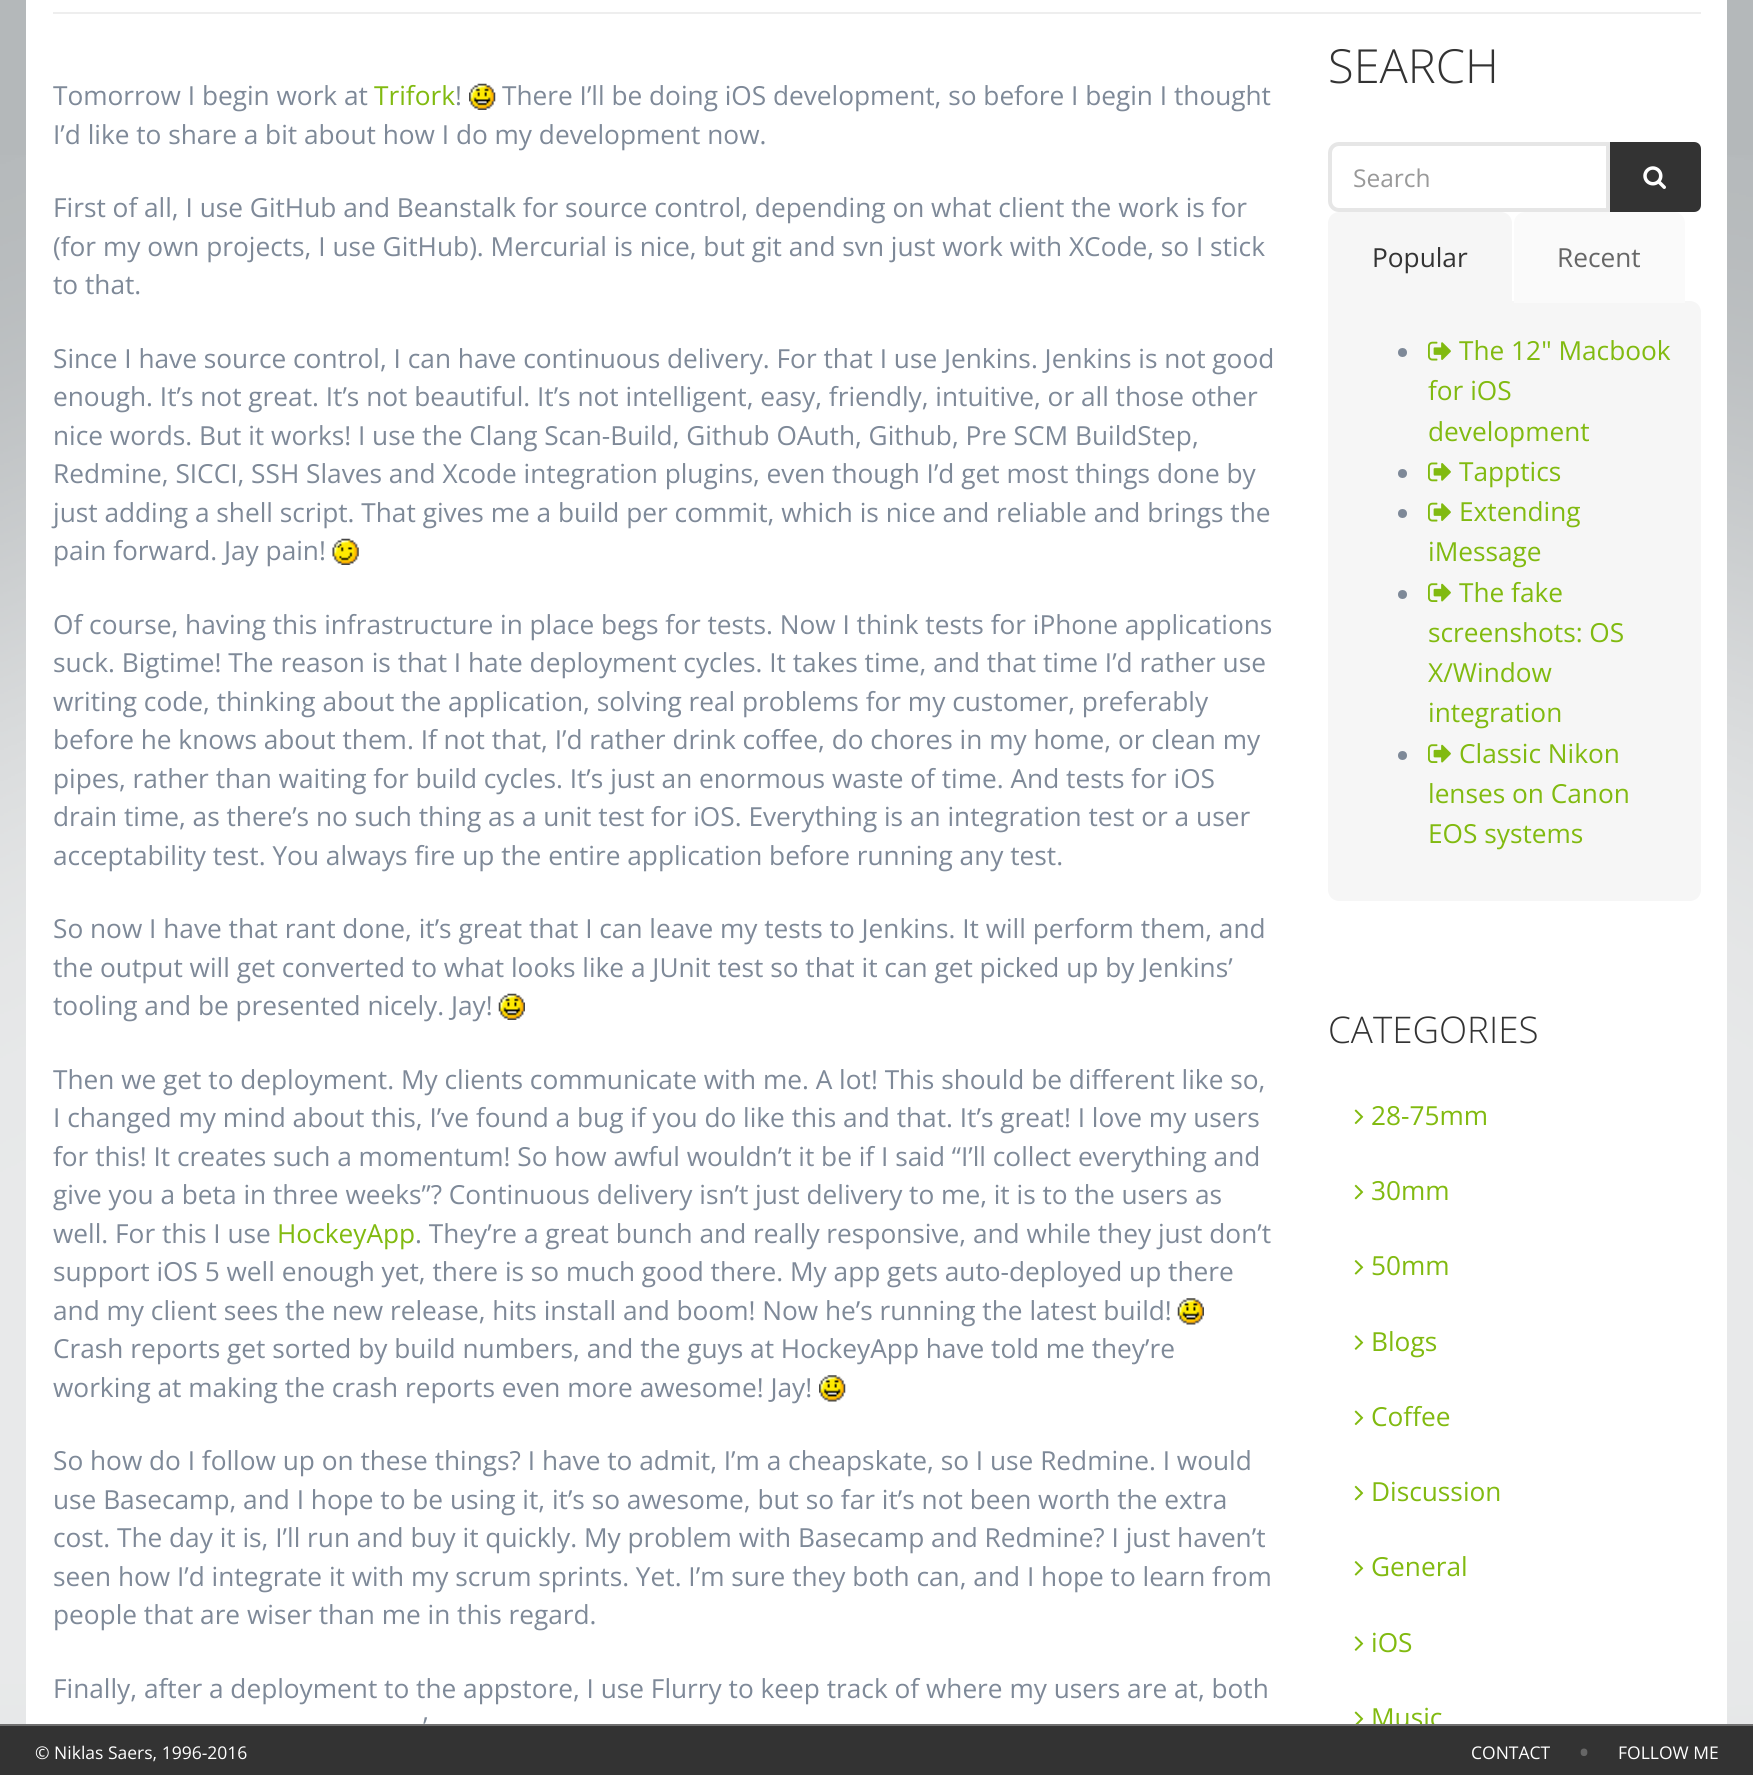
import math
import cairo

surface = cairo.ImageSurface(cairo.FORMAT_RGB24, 1753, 1775)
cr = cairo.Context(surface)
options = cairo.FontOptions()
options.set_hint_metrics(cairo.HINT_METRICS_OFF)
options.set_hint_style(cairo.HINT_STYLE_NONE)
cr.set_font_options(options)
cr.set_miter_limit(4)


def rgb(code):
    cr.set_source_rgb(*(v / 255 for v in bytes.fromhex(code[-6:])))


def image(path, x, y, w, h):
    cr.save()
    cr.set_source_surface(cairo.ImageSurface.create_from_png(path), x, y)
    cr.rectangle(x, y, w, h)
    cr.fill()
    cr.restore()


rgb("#b4b8ba")
cr.paint()
image("img/1.png", 0, 155, 1753, 1569)
rgb("#ffffff")
cr.rectangle(26, 0, 1701, 1724)
cr.fill()
rgb("#eeeeee")
cr.rectangle(53, 12, 1648, 2)
cr.fill()
image("img/2.png", 469, 83, 27, 27)
image("img/3.png", 332, 538, 27, 27)
image("img/4.png", 498, 993, 27, 27)
image("img/5.png", 1177, 1298, 27, 27)
image("img/6.png", 819, 1375, 27, 27)
rgb("#333333")
cr.new_path()
cr.move_to(1610, 144)
cr.line_to(1694, 144)
cr.curve_to(1697, 144, 1699, 146, 1699, 149)
cr.line_to(1699, 205)
cr.curve_to(1699, 208, 1697, 210, 1694, 210)
cr.line_to(1610, 210)
cr.close_path()
cr.fill_preserve()
cr.set_line_width(4)
cr.stroke()
rgb("#ffffff")
cr.new_path()
cr.move_to(1339, 144)
cr.line_to(1608, 144)
cr.line_to(1608, 210)
cr.line_to(1339, 210)
cr.curve_to(1334, 210, 1330, 206, 1330, 201)
cr.line_to(1330, 153)
cr.curve_to(1330, 148, 1334, 144, 1339, 144)
cr.close_path()
cr.fill_preserve()
rgb("#e6e6e6")
cr.stroke()
image("img/7.png", 1643, 166, 23, 23)
rgb("#f6f6f6")
cr.new_path()
cr.move_to(1328, 301)
cr.line_to(1690, 301)
cr.curve_to(1696, 301, 1701, 306, 1701, 312)
cr.line_to(1701, 890)
cr.curve_to(1701, 896, 1696, 901, 1690, 901)
cr.line_to(1339, 901)
cr.curve_to(1333, 901, 1328, 896, 1328, 890)
cr.close_path()
cr.fill()
cr.new_path()
cr.move_to(1339, 212)
cr.line_to(1501, 212)
cr.curve_to(1507, 212, 1512, 217, 1512, 223)
cr.line_to(1512, 303)
cr.line_to(1328, 303)
cr.line_to(1328, 223)
cr.curve_to(1328, 217, 1333, 212, 1339, 212)
cr.close_path()
cr.fill()
rgb("#fafafa")
cr.new_path()
cr.move_to(1525, 212)
cr.line_to(1674, 212)
cr.curve_to(1680, 212, 1685, 217, 1685, 223)
cr.line_to(1685, 303)
cr.line_to(1514, 303)
cr.line_to(1514, 223)
cr.curve_to(1514, 217, 1519, 212, 1525, 212)
cr.close_path()
cr.fill()
rgb("#7e8998")
cr.arc(1402.5, 352.5, 4.5, 0, 2 * math.pi)
cr.fill()
image("img/8.png", 1428, 341, 23, 20)
cr.arc(1402.5, 473.5, 4.5, 0, 2 * math.pi)
cr.fill()
image("img/9.png", 1428, 462, 23, 20)
cr.arc(1402.5, 513.5, 4.5, 0, 2 * math.pi)
cr.fill()
image("img/8.png", 1428, 502, 23, 20)
cr.arc(1402.5, 594.5, 4.5, 0, 2 * math.pi)
cr.fill()
image("img/10.png", 1428, 583, 23, 19)
cr.arc(1402.5, 755.5, 4.5, 0, 2 * math.pi)
cr.fill()
image("img/10.png", 1428, 744, 23, 19)
image("img/11.png", 1354, 1109, 10, 16)
image("img/12.png", 1354, 1184, 10, 16)
image("img/13.png", 1354, 1260, 10, 15)
image("img/14.png", 1354, 1335, 10, 15)
image("img/11.png", 1354, 1410, 10, 16)
image("img/12.png", 1354, 1485, 10, 16)
image("img/13.png", 1354, 1561, 10, 15)
image("img/14.png", 1354, 1636, 10, 15)
image("img/15.png", 1354, 1711, 10, 13)
cr.select_font_face("Open Sans")
cr.set_font_size(26.25)
cr.move_to(53, 105)
cr.show_text("Tomorrow I begin work at")
rgb("#81ba10")
cr.move_to(374, 105)
cr.show_text("Trifork")
rgb("#7e8998")
for x, y, s in [
    (455, 105, "!"),
    (502, 105, "There I’ll be doing iOS development, so before I begin I thought"),
    (53, 144, "I’d like to share a bit about how I do my development now."),
    (53, 217, "First of all, I use GitHub and Beanstalk for source control, depending on what client the work is for"),
    (53, 256, "(for my own projects, I use GitHub). Mercurial is nice, but git and svn just work with XCode, so I stick"),
    (53, 294, "to that."),
    (53, 368, "Since I have source control, I can have continuous delivery. For that I use Jenkins. Jenkins is not good"),
    (53, 406, "enough. It’s not great. It’s not beautiful. It’s not intelligent, easy, friendly, intuitive, or all those other"),
    (53, 445, "nice words. But it works! I use the Clang Scan-Build, Github OAuth, Github, Pre SCM BuildStep,"),
    (53, 483, "Redmine, SICCI, SSH Slaves and Xcode integration plugins, even though I’d get most things done by"),
    (53, 522, "just adding a shell script. That gives me a build per commit, which is nice and reliable and brings the"),
    (53, 560, "pain forward. Jay pain!"),
    (53, 634, "Of course, having this infrastructure in place begs for tests. Now I think tests for iPhone applications"),
    (53, 672, "suck. Bigtime! The reason is that I hate deployment cycles. It takes time, and that time I’d rather use"),
    (53, 711, "writing code, thinking about the application, solving real problems for my customer, preferably"),
    (53, 749, "before he knows about them. If not that, I’d rather drink coffee, do chores in my home, or clean my"),
    (53, 788, "pipes, rather than waiting for build cycles. It’s just an enormous waste of time. And tests for iOS"),
    (53, 826, "drain time, as there’s no such thing as a unit test for iOS. Everything is an integration test or a user"),
    (53, 865, "acceptability test. You always fire up the entire application before running any test."),
    (53, 938, "So now I have that rant done, it’s great that I can leave my tests to Jenkins. It will perform them, and"),
    (53, 977, "the output will get converted to what looks like a JUnit test so that it can get picked up by Jenkins’"),
    (53, 1015, "tooling and be presented nicely. Jay!"),
    (53, 1089, "Then we get to deployment. My clients communicate with me. A lot! This should be different like so,"),
    (53, 1127, "I changed my mind about this, I’ve found a bug if you do like this and that. It’s great! I love my users"),
    (53, 1166, "for this! It creates such a momentum! So how awful wouldn’t it be if I said “I’ll collect everything and"),
    (53, 1204, "give you a beta in three weeks”? Continuous delivery isn’t just delivery to me, it is to the users as"),
    (53, 1243, "well. For this I use"),
]:
    cr.move_to(x, y)
    cr.show_text(s)
rgb("#81ba10")
cr.move_to(277, 1243)
cr.show_text("HockeyApp")
rgb("#7e8998")
for x, y, s in [
    (415, 1243, ". They’re a great bunch and really responsive, and while they just don’t"),
    (53, 1281, "support iOS 5 well enough yet, there is so much good there. My app gets auto-deployed up there"),
    (53, 1320, "and my client sees the new release, hits install and boom! Now he’s running the latest build!"),
    (53, 1358, "Crash reports get sorted by build numbers, and the guys at HockeyApp have told me they’re"),
    (53, 1397, "working at making the crash reports even more awesome! Jay!"),
    (53, 1470, "So how do I follow up on these things? I have to admit, I’m a cheapskate, so I use Redmine. I would"),
    (53, 1509, "use Basecamp, and I hope to be using it, it’s so awesome, but so far it’s not been worth the extra"),
    (53, 1547, "cost. The day it is, I’ll run and buy it quickly. My problem with Basecamp and Redmine? I just haven’t"),
    (53, 1586, "seen how I’d integrate it with my scrum sprints. Yet. I’m sure they both can, and I hope to learn from"),
    (53, 1624, "people that are wiser than me in this regard."),
    (53, 1698, "Finally, after a deployment to the appstore, I use Flurry to keep track of where my users are at, both"),
    (423, 1736, "’"),
]:
    cr.move_to(x, y)
    cr.show_text(s)
cr.select_font_face("Open Sans Light")
cr.set_font_size(47)
rgb("#333333")
cr.move_to(1328, 83)
cr.show_text("SEARCH")
cr.select_font_face("Open Sans")
cr.set_font_size(24.5)
rgb("#999999")
cr.move_to(1353, 187)
cr.show_text("Search")
cr.set_font_size(26.25)
rgb("#333333")
cr.move_to(1372, 267)
cr.show_text("Popular")
rgb("#666666")
cr.move_to(1557, 267)
cr.show_text("Recent")
rgb("#81ba10")
for x, y, s in [
    (1459, 360, "The 12\" Macbook"),
    (1428, 400, "for iOS"),
    (1428, 441, "development"),
    (1459, 481, "Tapptics"),
    (1459, 521, "Extending"),
    (1428, 561, "iMessage"),
    (1459, 602, "The fake"),
    (1428, 642, "screenshots: OS"),
    (1428, 682, "X/Window"),
    (1428, 722, "integration"),
    (1459, 763, "Classic Nikon"),
    (1428, 803, "lenses on Canon"),
    (1428, 843, "EOS systems"),
]:
    cr.move_to(x, y)
    cr.show_text(s)
cr.select_font_face("Open Sans Light")
cr.set_font_size(36.75)
rgb("#333333")
cr.move_to(1328, 1043)
cr.show_text("CATEGORIES")
cr.select_font_face("Open Sans")
cr.set_font_size(26.25)
rgb("#81ba10")
for x, y, s in [
    (1371, 1125, "28-75mm"),
    (1371, 1200, "30mm"),
    (1371, 1275, "50mm"),
    (1371, 1351, "Blogs"),
    (1371, 1426, "Coffee"),
    (1371, 1501, "Discussion"),
    (1371, 1576, "General"),
    (1371, 1652, "iOS"),
    (1371, 1727, "Music"),
]:
    cr.move_to(x, y)
    cr.show_text(s)
rgb("#333333")
cr.rectangle(0, 1726, 1753, 49)
cr.fill()
rgb("#707070")
cr.rectangle(0, 1724, 1753, 2)
cr.fill()
cr.set_font_size(17.5)
rgb("#ffffff")
cr.move_to(35, 1759)
cr.show_text("© Niklas Saers, 1996-2016")
cr.move_to(1471, 1759)
cr.show_text("CONTACT")
cr.set_font_size(32)
rgb("#666666")
cr.move_to(1578, 1764)
cr.show_text("•")
cr.set_font_size(17.5)
rgb("#ffffff")
cr.move_to(1618, 1759)
cr.show_text("FOLLOW ME")
surface.write_to_png("page.png")
